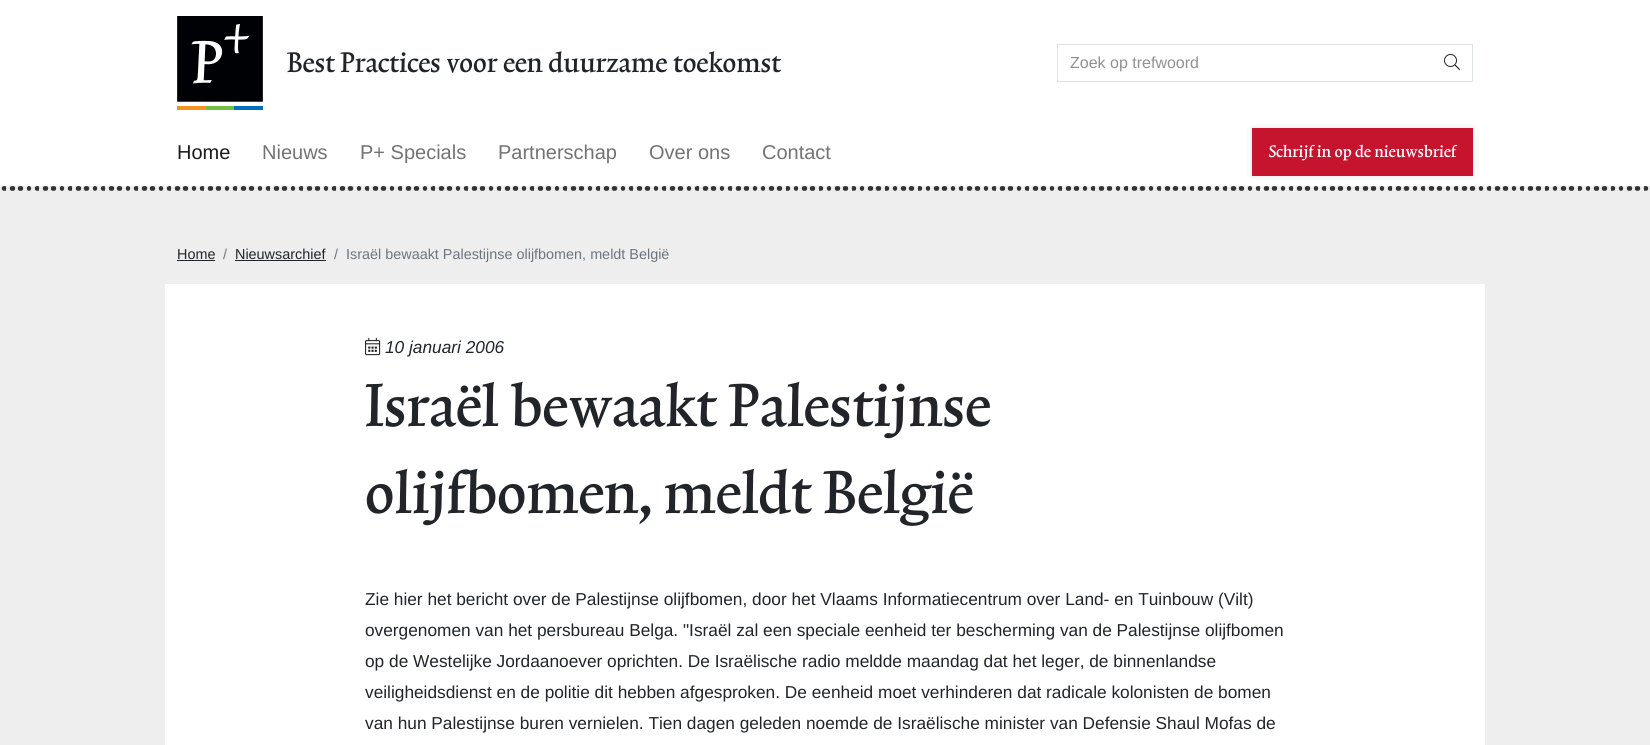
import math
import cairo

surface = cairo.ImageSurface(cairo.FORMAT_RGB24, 1650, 745)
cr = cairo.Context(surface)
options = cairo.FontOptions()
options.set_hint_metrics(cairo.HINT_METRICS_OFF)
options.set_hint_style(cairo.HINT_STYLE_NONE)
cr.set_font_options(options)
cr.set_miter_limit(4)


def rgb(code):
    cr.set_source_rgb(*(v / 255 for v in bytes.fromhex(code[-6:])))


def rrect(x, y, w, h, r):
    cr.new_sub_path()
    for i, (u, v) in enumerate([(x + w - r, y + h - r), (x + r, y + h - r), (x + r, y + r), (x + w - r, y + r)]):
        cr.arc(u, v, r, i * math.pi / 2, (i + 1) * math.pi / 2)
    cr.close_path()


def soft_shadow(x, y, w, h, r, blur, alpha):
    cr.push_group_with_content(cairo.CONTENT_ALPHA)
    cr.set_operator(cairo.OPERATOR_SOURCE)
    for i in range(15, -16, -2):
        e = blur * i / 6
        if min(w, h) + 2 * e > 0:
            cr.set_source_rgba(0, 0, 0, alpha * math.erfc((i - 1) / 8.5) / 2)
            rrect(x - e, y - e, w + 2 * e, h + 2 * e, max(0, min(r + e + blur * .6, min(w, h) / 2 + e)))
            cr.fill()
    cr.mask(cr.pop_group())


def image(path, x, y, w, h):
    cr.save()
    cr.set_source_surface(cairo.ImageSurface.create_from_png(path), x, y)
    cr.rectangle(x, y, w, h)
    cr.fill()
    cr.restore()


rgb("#ffffff")
cr.paint()
image("img/1.png", 177, 16, 86, 94)
for x, y, w, h, color in [
    (1057, 44, 416, 1, "#dee2e6"),
    (1057, 81, 376, 1, "#dee2e6"),
    (1057, 44, 1, 38, "#dee2e6"),
    (1472, 44, 1, 38, "#dee2e6"),
    (1432, 81, 41, 1, "#dee2e6"),
]:
    rgb(color)
    cr.rectangle(x, y, w, h)
    cr.fill()
image("img/2.png", 1444, 54, 16, 16)
rgb("#eeeeee")
cr.rectangle(0, 186, 1650, 559)
cr.fill()
image("img/3.png", 1, 186, 1648, 5)
rgb("#000000")
soft_shadow(1252, 128, 221, 48, 0, 4, 0.1)
for x, y, w, h, color in [
    (1252, 128, 221, 48, "#c6142e"),
    (177, 260, 38, 1, "#212529"),
    (235, 260, 91, 1, "#212529"),
    (165, 284, 1320, 461, "#ffffff"),
]:
    rgb(color)
    cr.rectangle(x, y, w, h)
    cr.fill()
image("img/4.png", 365, 337, 16, 19)
cr.select_font_face("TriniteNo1 Medium")
cr.set_font_size(33.6)
rgb("#212529")
cr.move_to(287, 72)
cr.show_text("Best Practices voor een duurzame toekomst")
cr.select_font_face("Liberation Sans")
cr.set_font_size(16)
rgb("#919191")
cr.move_to(1070, 68)
cr.show_text("Zoek op trefwoord")
cr.set_font_size(20)
rgb("#1a1a1a")
cr.move_to(177, 159)
cr.show_text("Home")
rgb("#737373")
for x, y, s in [
    (262, 159, "Nieuws"),
    (360, 159, "P+ Specials"),
    (498, 159, "Partnerschap"),
    (649, 159, "Over ons"),
    (762, 159, "Contact"),
]:
    cr.move_to(x, y)
    cr.show_text(s)
cr.select_font_face("TriniteNo1 Medium")
rgb("#ffffff")
cr.move_to(1269, 157)
cr.show_text("Schrijf in op de nieuwsbrief")
cr.select_font_face("Liberation Sans")
cr.set_font_size(14.4)
rgb("#212529")
cr.move_to(177, 259)
cr.show_text("Home")
rgb("#6c757d")
cr.move_to(223, 259)
cr.show_text("/")
rgb("#212529")
cr.move_to(235, 259)
cr.show_text("Nieuwsarchief")
rgb("#6c757d")
cr.move_to(334, 259)
cr.show_text("/")
cr.move_to(346, 259)
cr.show_text("Israël bewaakt Palestijnse olijfbomen, meldt België")
cr.select_font_face("Liberation Sans", cairo.FONT_SLANT_ITALIC)
cr.set_font_size(17.28)
rgb("#212529")
cr.move_to(385, 353)
cr.show_text("10 januari 2006")
cr.select_font_face("TriniteNo1 Medium")
cr.set_font_size(72)
cr.move_to(365, 426)
cr.show_text("Israël bewaakt Palestijnse")
cr.move_to(365, 513)
cr.show_text("olijfbomen, meldt België")
cr.select_font_face("Liberation Sans")
cr.set_font_size(17.28)
for x, y, s in [
    (365, 605, "Zie hier het bericht over de Palestijnse olijfbomen, door het Vlaams Informatiecentrum over Land- en Tuinbouw (Vilt)"),
    (365, 636, "overgenomen van het persbureau Belga. \"Israël zal een speciale eenheid ter bescherming van de Palestijnse olijfbomen"),
    (365, 667, "op de Westelijke Jordaanoever oprichten. De Israëlische radio meldde maandag dat het leger, de binnenlandse"),
    (365, 698, "veiligheidsdienst en de politie dit hebben afgesproken. De eenheid moet verhinderen dat radicale kolonisten de bomen"),
    (365, 729, "van hun Palestijnse buren vernielen. Tien dagen geleden noemde de Israëlische minister van Defensie Shaul Mofas de"),
]:
    cr.move_to(x, y)
    cr.show_text(s)
surface.write_to_png("page.png")
